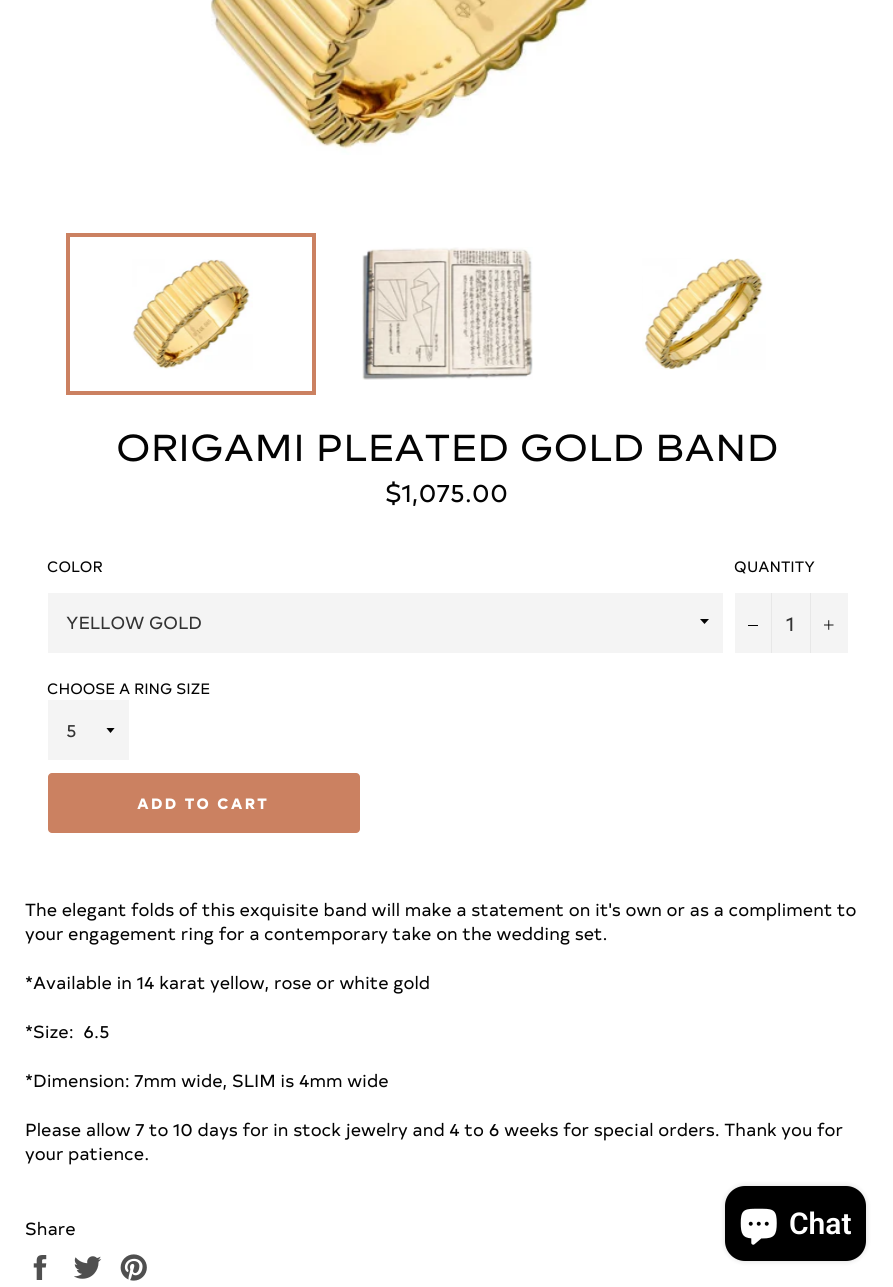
import math
import cairo

surface = cairo.ImageSurface(cairo.FORMAT_RGB24, 893, 1287)
cr = cairo.Context(surface)
options = cairo.FontOptions()
options.set_hint_metrics(cairo.HINT_METRICS_OFF)
options.set_hint_style(cairo.HINT_STYLE_NONE)
cr.set_font_options(options)
cr.set_miter_limit(4)


def rgb(code):
    cr.set_source_rgb(*(v / 255 for v in bytes.fromhex(code[-6:])))


def tracked(x, y, s, letter, word):
    cr.move_to(x, y)
    for ch in s:
        cr.show_text(ch)
        cr.rel_move_to(letter + word * (ch == ' '), 0)


def rrect(x, y, w, h, r):
    cr.new_sub_path()
    for i, (u, v) in enumerate([(x + w - r, y + h - r), (x + r, y + h - r), (x + r, y + r), (x + w - r, y + r)]):
        cr.arc(u, v, r, i * math.pi / 2, (i + 1) * math.pi / 2)
    cr.close_path()


def soft_shadow(x, y, w, h, r, blur, alpha):
    cr.push_group_with_content(cairo.CONTENT_ALPHA)
    cr.set_operator(cairo.OPERATOR_SOURCE)
    for i in range(15, -16, -2):
        e = blur * i / 6
        if min(w, h) + 2 * e > 0:
            cr.set_source_rgba(0, 0, 0, alpha * math.erfc((i - 1) / 8.5) / 2)
            rrect(x - e, y - e, w + 2 * e, h + 2 * e, max(0, min(r + e + blur * .6, min(w, h) / 2 + e)))
            cr.fill()
    cr.mask(cr.pop_group())


def image(path, x, y, w, h):
    cr.save()
    cr.set_source_surface(cairo.ImageSurface.create_from_png(path), x, y)
    cr.rectangle(x, y, w, h)
    cr.fill()
    cr.restore()


rgb("#ffffff")
cr.paint()
image("img/1.png", 210, 0, 382, 155)
image("img/2.png", 132, 259, 121, 111)
cr.rectangle(68, 235, 246, 158)
rgb("#cb8161")
cr.set_line_width(4)
cr.stroke()
image("img/3.png", 362, 247, 171, 133)
image("img/4.png", 642, 258, 124, 112)
rgb("#f4f4f4")
cr.rectangle(48, 593, 675, 60)
cr.fill()
rgb("#030303")
cr.new_path()
cr.move_to(700, 619)
cr.line_to(704.5, 624)
cr.line_to(709, 619)
cr.close_path()
cr.fill()
for x, y, w, h, color in [
    (735, 593, 113, 60, "#f4f4f4"),
    (771, 593, 1, 60, "#e7e7e7"),
    (748, 625, 10, 1, "#030303"),
    (810, 593, 1, 60, "#e7e7e7"),
]:
    rgb(color)
    cr.rectangle(x, y, w, h)
    cr.fill()
image("img/5.png", 824, 620, 10, 10)
rgb("#f4f4f4")
cr.rectangle(48, 700, 81, 60)
cr.fill()
cr.save()
cr.rectangle(106, 728, 10, 6)
cr.clip()
rgb("#030303")
cr.new_path()
cr.move_to(106, 727.5)
cr.line_to(110.5, 733)
cr.line_to(115, 727.5)
cr.close_path()
cr.fill()
cr.restore()
rgb("#cb8161")
rrect(48, 773, 312, 60, 4)
cr.fill()
image("img/6.png", 33, 1255, 14, 25)
image("img/7.png", 74, 1256, 28, 23)
image("img/8.png", 120, 1254, 27, 27)
rgb("#000000")
soft_shadow(725, 1186, 141, 75, 20, 3, 0.15)
rgb("#000000")
rrect(725, 1186, 141, 75, 20)
cr.fill()
image("img/9.png", 740, 1208, 37, 37)
cr.select_font_face("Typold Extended")
cr.set_font_size(37.5)
rgb("#030303")
cr.move_to(116, 461)
cr.show_text("ORIGAMI PLEATED GOLD BAND")
cr.select_font_face("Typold")
cr.set_font_size(25)
cr.move_to(385, 502)
cr.show_text("$1,075.00")
cr.set_font_size(15)
cr.move_to(47, 572)
cr.show_text("COLOR")
cr.set_font_size(17.5)
rgb("#333333")
cr.move_to(66, 629)
cr.show_text("YELLOW GOLD")
cr.set_font_size(15)
rgb("#030303")
cr.move_to(734, 572)
cr.show_text("QUANTITY")
cr.set_font_size(20)
rgb("#333333")
cr.move_to(786, 631)
cr.show_text("1")
cr.set_font_size(15)
rgb("#030303")
cr.move_to(47, 694)
cr.show_text("CHOOSE A RING SIZE")
cr.set_font_size(17.5)
rgb("#333333")
cr.move_to(66, 737)
cr.show_text("5")
cr.select_font_face("Typold ExtraBold")
cr.set_font_size(15)
rgb("#ffffff")
tracked(137, 809, "ADD TO CART", 2.25, 0)
cr.select_font_face("Typold")
cr.set_font_size(17.5)
rgb("#030303")
for x, y, s in [
    (25, 916, "The elegant folds of this exquisite band will make a statement on it's own or as a compliment to"),
    (25, 940, "your engagement ring for a contemporary take on the wedding set."),
    (25, 989, "*Available in 14 karat yellow, rose or white gold"),
    (25, 1038, "*Size:  6.5"),
    (25, 1087, "*Dimension: 7mm wide, SLIM is 4mm wide"),
    (25, 1136, "Please allow 7 to 10 days for in stock jewelry and 4 to 6 weeks for special orders. Thank you for"),
    (25, 1160, "your patience."),
    (25, 1235, "Share"),
]:
    cr.move_to(x, y)
    cr.show_text(s)
cr.select_font_face("Roboto SemiBold")
cr.set_font_size(30)
rgb("#ffffff")
cr.move_to(789, 1234)
cr.show_text("Chat")
surface.write_to_png("page.png")
